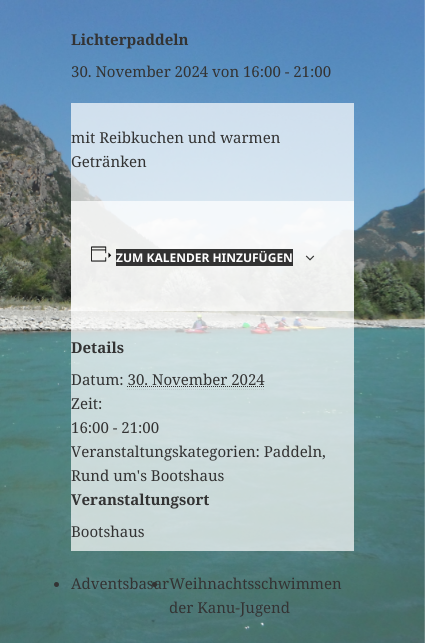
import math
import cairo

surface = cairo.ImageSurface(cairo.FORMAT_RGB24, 425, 643)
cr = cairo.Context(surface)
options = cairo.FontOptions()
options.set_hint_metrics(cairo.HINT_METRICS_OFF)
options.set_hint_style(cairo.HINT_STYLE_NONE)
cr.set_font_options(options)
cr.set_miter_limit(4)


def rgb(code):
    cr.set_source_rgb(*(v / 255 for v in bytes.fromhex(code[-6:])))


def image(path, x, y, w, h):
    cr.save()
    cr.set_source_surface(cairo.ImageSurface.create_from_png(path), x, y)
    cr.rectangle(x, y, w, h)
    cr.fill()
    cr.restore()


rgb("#ffffff")
cr.paint()
image("img/1.png", 0, 0, 425, 643)
cr.set_source_rgba(1, 1, 1, 0.7)
cr.rectangle(71, 103, 283, 448)
cr.fill()
cr.rectangle(71, 201, 283, 110)
cr.fill()
image("img/2.png", 91, 246, 21, 16)
rgb("#333333")
cr.rectangle(116, 249, 177, 17)
cr.fill()
image("img/3.png", 305, 255, 10, 6)
cr.new_path()
cr.move_to(127, 386.5)
cr.line_to(264, 386.5)
cr.set_line_width(1)
cr.set_dash([1, 1])
cr.stroke()
cr.new_path()
cr.move_to(127, 389.5)
cr.line_to(264, 389.5)
cr.set_source_rgba(0.2, 0.2, 0.2, 0.1)
cr.stroke()
rgb("#333333")
cr.arc(56.5, 584.5, 2.5, 0, 2 * math.pi)
cr.fill()
cr.arc(154.5, 584.5, 2.5, 0, 2 * math.pi)
cr.fill()
cr.select_font_face("Noto Serif", cairo.FONT_SLANT_NORMAL, cairo.FONT_WEIGHT_BOLD)
cr.set_font_size(15)
cr.move_to(71, 45)
cr.show_text("Lichterpaddeln")
cr.select_font_face("Noto Serif")
for x, y, s in [
    (71, 77, "30. November 2024 von 16:00 - 21:00"),
    (71, 143, "mit Reibkuchen und warmen"),
    (71, 167, "Getränken"),
]:
    cr.move_to(x, y)
    cr.show_text(s)
cr.select_font_face("Noto Sans", cairo.FONT_SLANT_NORMAL, cairo.FONT_WEIGHT_BOLD)
cr.set_font_size(12)
rgb("#ffffff")
cr.move_to(116, 262)
cr.show_text("ZUM KALENDER HINZUFÜGEN")
cr.select_font_face("Noto Serif", cairo.FONT_SLANT_NORMAL, cairo.FONT_WEIGHT_BOLD)
cr.set_font_size(15)
rgb("#333333")
cr.move_to(71, 353)
cr.show_text("Details")
cr.select_font_face("Noto Serif")
for x, y, s in [
    (71, 385, "Datum: 30. November 2024"),
    (71, 409, "Zeit:"),
    (71, 433, "16:00 - 21:00"),
    (71, 457, "Veranstaltungskategorien: Paddeln,"),
    (71, 481, "Rund um's Bootshaus"),
]:
    cr.move_to(x, y)
    cr.show_text(s)
cr.select_font_face("Noto Serif", cairo.FONT_SLANT_NORMAL, cairo.FONT_WEIGHT_BOLD)
cr.move_to(71, 505)
cr.show_text("Veranstaltungsort")
cr.select_font_face("Noto Serif")
for x, y, s in [
    (71, 537, "Bootshaus"),
    (71, 589, "AdventsbasarWeihnachtsschwimmen"),
    (169, 613, "der Kanu-Jugend"),
]:
    cr.move_to(x, y)
    cr.show_text(s)
surface.write_to_png("page.png")
